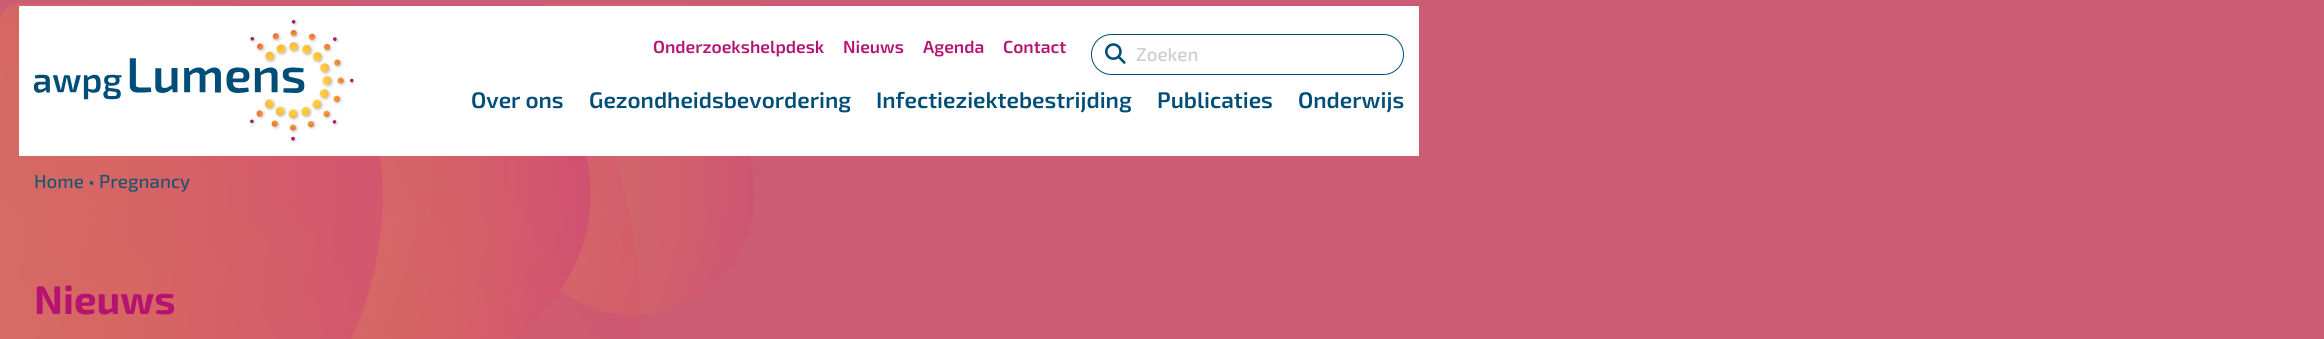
import math
import cairo

surface = cairo.ImageSurface(cairo.FORMAT_RGB24, 2324, 339)
cr = cairo.Context(surface)
options = cairo.FontOptions()
options.set_hint_metrics(cairo.HINT_METRICS_OFF)
options.set_hint_style(cairo.HINT_STYLE_NONE)
cr.set_font_options(options)
cr.set_miter_limit(4)


def rgb(code):
    cr.set_source_rgb(*(v / 255 for v in bytes.fromhex(code[-6:])))


def rrect(x, y, w, h, r):
    cr.new_sub_path()
    for i, (u, v) in enumerate([(x + w - r, y + h - r), (x + r, y + h - r), (x + r, y + r), (x + w - r, y + r)]):
        cr.arc(u, v, r, i * math.pi / 2, (i + 1) * math.pi / 2)
    cr.close_path()


def image(path, x, y, w, h):
    cr.save()
    cr.set_source_surface(cairo.ImageSurface.create_from_png(path), x, y)
    cr.rectangle(x, y, w, h)
    cr.fill()
    cr.restore()


rgb("#cc5c73")
cr.paint()
image("img/1.png", 0, 4, 762, 335)
cr.select_font_face("Exo 2 Medium")
cr.set_font_size(18.75)
rgb("#004e77")
cr.move_to(34, 188)
cr.show_text("Home • Pregnancy")
image("img/4.png", 0, 4, 755, 335)
rgb("#ffffff")
cr.rectangle(19, 6, 1400, 150)
cr.fill()
cr.select_font_face("Exo 2 SemiBold")
cr.set_font_size(22.5)
rgb("#004e77")
for x, y, s in [
    (1298, 108, "Onderwijs"),
    (1157, 108, "Publicaties"),
    (876, 108, "Infectieziektebestrijding"),
    (589, 108, "Gezondheidsbevordering"),
    (471, 108, "Over ons"),
]:
    cr.move_to(x, y)
    cr.show_text(s)
rrect(1091.5, 34.5, 312, 40, 20)
cr.set_line_width(1)
cr.stroke()
image("img/3.png", 1105, 43, 21, 21)
cr.select_font_face("Exo 2 Medium")
cr.set_font_size(18.75)
rgb("#cccccc")
cr.move_to(1136, 61)
cr.show_text("Zoeken")
cr.select_font_face("Exo 2 SemiBold")
cr.set_font_size(17.5)
rgb("#b61270")
for x, y, s in [
    (1003, 53, "Contact"),
    (923, 53, "Agenda"),
    (843, 53, "Nieuws"),
    (653, 53, "Onderzoekshelpdesk"),
]:
    cr.move_to(x, y)
    cr.show_text(s)
image("img/2.png", 34, 19, 320, 124)
cr.select_font_face("Exo 2", cairo.FONT_SLANT_NORMAL, cairo.FONT_WEIGHT_BOLD)
cr.set_font_size(40)
cr.move_to(34, 314)
cr.show_text("Nieuws")
surface.write_to_png("page.png")
